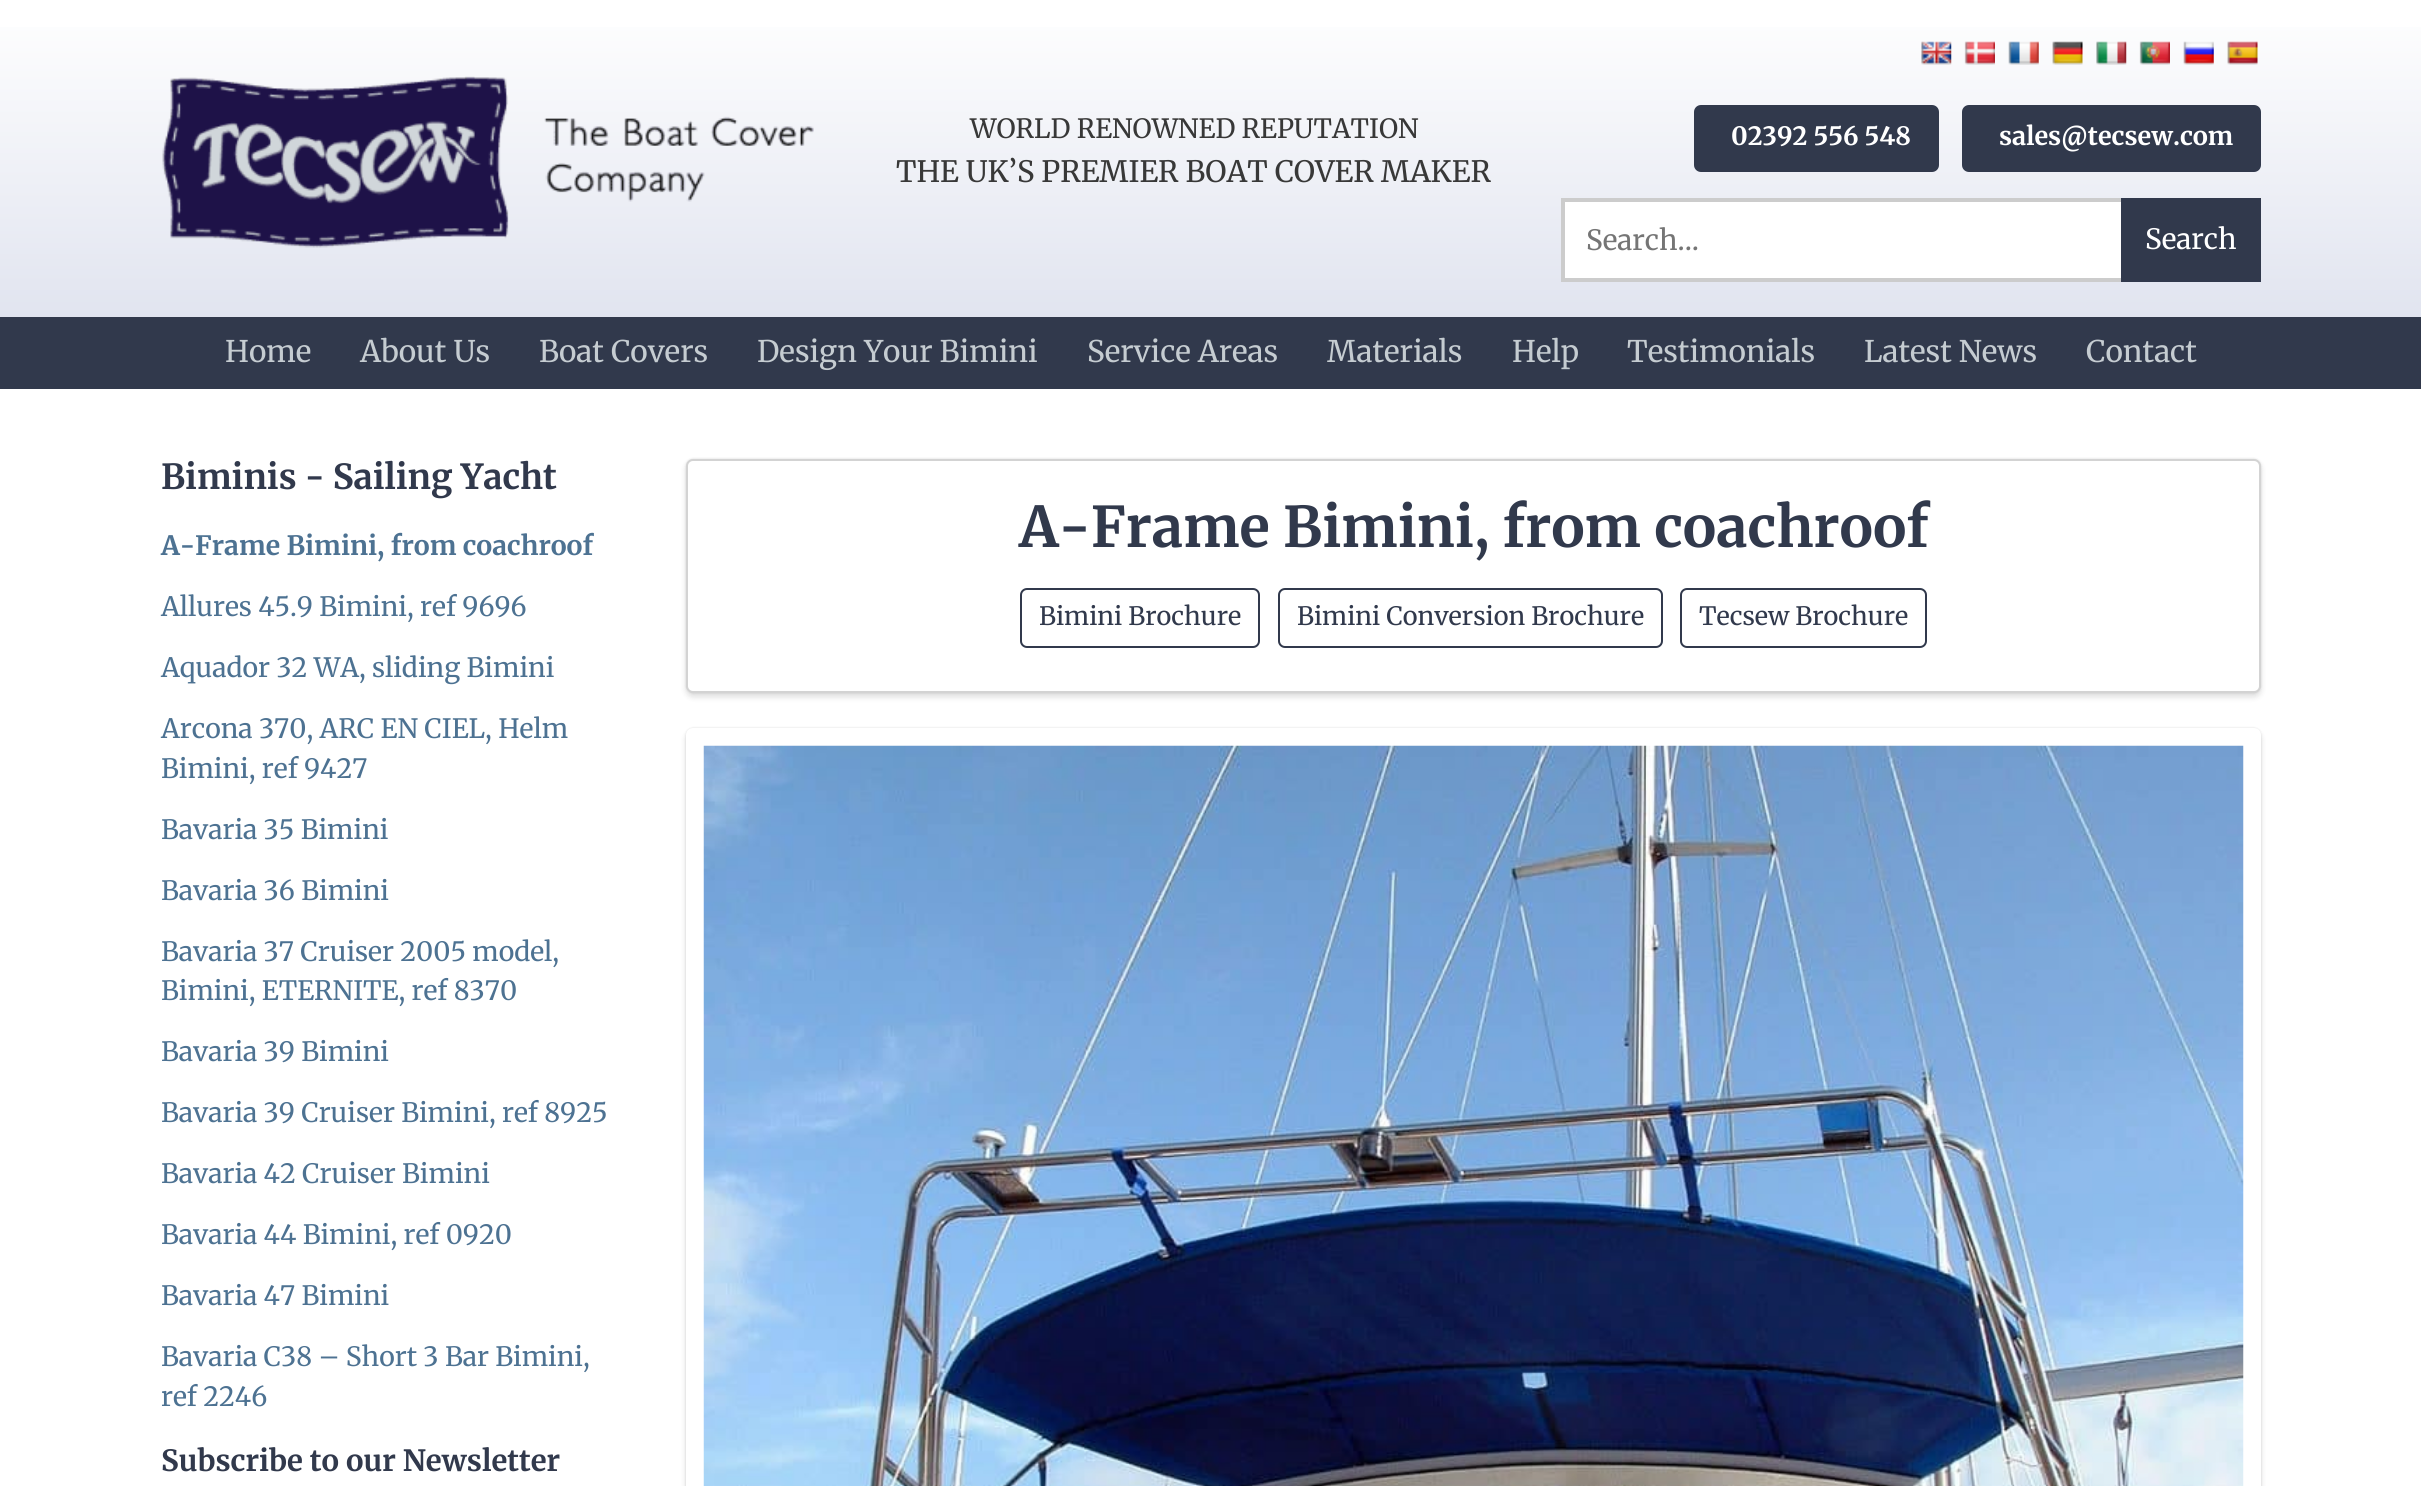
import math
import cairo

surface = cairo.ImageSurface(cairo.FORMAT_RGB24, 2421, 1486)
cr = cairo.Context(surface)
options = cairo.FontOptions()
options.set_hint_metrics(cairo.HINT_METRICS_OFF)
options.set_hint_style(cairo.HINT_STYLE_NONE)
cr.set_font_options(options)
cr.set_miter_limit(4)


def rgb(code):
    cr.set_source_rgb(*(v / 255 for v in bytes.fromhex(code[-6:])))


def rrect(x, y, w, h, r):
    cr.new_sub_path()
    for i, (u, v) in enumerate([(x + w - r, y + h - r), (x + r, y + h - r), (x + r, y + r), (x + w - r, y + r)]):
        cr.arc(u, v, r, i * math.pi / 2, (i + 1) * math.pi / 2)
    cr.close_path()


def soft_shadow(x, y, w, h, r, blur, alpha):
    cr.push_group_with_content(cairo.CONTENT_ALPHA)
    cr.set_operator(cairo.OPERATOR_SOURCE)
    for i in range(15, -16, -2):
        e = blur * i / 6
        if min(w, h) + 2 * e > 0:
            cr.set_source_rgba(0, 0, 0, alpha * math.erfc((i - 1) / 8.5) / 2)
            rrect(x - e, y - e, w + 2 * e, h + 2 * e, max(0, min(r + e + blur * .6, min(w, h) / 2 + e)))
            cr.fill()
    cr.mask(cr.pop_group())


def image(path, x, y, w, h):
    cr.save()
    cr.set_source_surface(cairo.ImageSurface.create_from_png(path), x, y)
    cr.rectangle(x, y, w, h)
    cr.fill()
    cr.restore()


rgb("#ffffff")
cr.paint()
gradient = cairo.LinearGradient(1211, 389, 1211, 0)
gradient.add_color_stop_rgba(0, 0.855, 0.871, 0.925, 1)
gradient.add_color_stop_rgba(0.48, 0.925, 0.933, 0.961, 1)
gradient.add_color_stop_rgba(1, 1, 1, 1, 1)
cr.set_source(gradient)
cr.rectangle(0, 27, 2421, 290)
cr.fill()
image("img/1.png", 162, 76, 652, 172)
image("img/2.png", 1921, 41, 31, 24)
image("img/3.png", 1964, 41, 31, 24)
image("img/4.png", 2008, 41, 31, 24)
image("img/5.png", 2052, 41, 31, 24)
image("img/6.png", 2096, 41, 31, 24)
image("img/7.png", 2139, 41, 31, 24)
image("img/8.png", 2183, 41, 31, 24)
image("img/9.png", 2227, 41, 31, 24)
rgb("#31394c")
rrect(1694, 105, 245, 67, 7)
cr.fill()
rrect(1962, 105, 299, 67, 7)
cr.fill()
rgb("#ffffff")
cr.rectangle(1565, 202, 556, 76)
cr.fill()
cr.rectangle(1563, 200, 696, 80)
rgb("#cccccc")
cr.set_line_width(4)
cr.stroke()
rgb("#31394c")
cr.rectangle(2121, 198, 140, 84)
cr.fill()
cr.rectangle(0, 317, 2421, 72)
cr.fill()
rgb("#000000")
soft_shadow(686, 459, 1575, 234, 7, 1, 0.11)
soft_shadow(686, 462, 1575, 235, 7, 3, 0.13)
rgb("#ffffff")
rrect(687, 460, 1573, 232, 6)
cr.fill_preserve()
rgb("#d3d3d3")
cr.set_line_width(2)
cr.stroke()
rrect(1021, 589, 238, 58, 6)
rgb("#31394c")
cr.stroke()
rrect(1279, 589, 383, 58, 6)
cr.stroke()
rrect(1681, 589, 245, 58, 6)
cr.stroke()
rgb("#000000")
soft_shadow(686, 728, 1575, 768, 7, 1, 0.11)
soft_shadow(686, 732, 1575, 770, 7, 3, 0.13)
rgb("#ffffff")
rrect(686, 728, 1575, 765, 7)
cr.fill()
image("img/10.png", 703, 745, 1541, 741)
cr.select_font_face("Merriweather")
cr.set_font_size(26.5)
rgb("#383838")
cr.move_to(970, 138)
cr.show_text("WORLD RENOWNED REPUTATION")
cr.set_font_size(29.4)
cr.move_to(896, 182)
cr.show_text("THE UK’S PREMIER BOAT COVER MAKER")
cr.select_font_face("Merriweather", cairo.FONT_SLANT_NORMAL, cairo.FONT_WEIGHT_BOLD)
cr.set_font_size(25.25)
rgb("#ffffff")
cr.move_to(1731, 145)
cr.show_text("02392 556 548")
cr.move_to(1999, 145)
cr.show_text("sales@tecsew.com")
cr.select_font_face("Merriweather")
cr.set_font_size(28)
rgb("#757575")
cr.move_to(1586, 250)
cr.show_text("Search...")
rgb("#ffffff")
cr.move_to(2145, 249)
cr.show_text("Search")
cr.set_font_size(29.75)
rgb("#c5ccd1")
for x, y, s in [
    (225, 362, "Home"),
    (360, 362, "About Us"),
    (539, 362, "Boat Covers"),
    (757, 362, "Design Your Bimini"),
    (1087, 362, "Service Areas"),
    (1327, 362, "Materials"),
    (1512, 362, "Help"),
    (1627, 362, "Testimonials"),
    (1864, 362, "Latest News"),
    (2086, 362, "Contact"),
]:
    cr.move_to(x, y)
    cr.show_text(s)
cr.select_font_face("Merriweather", cairo.FONT_SLANT_NORMAL, cairo.FONT_WEIGHT_BOLD)
cr.set_font_size(34.5)
rgb("#31394c")
cr.move_to(161, 489)
cr.show_text("Biminis - Sailing Yacht")
cr.set_font_size(26.6)
rgb("#4d7292")
cr.move_to(161, 555)
cr.show_text("A-Frame Bimini, from coachroof")
cr.select_font_face("Merriweather")
for x, y, s in [
    (161, 616, "Allures 45.9 Bimini, ref 9696"),
    (161, 677, "Aquador 32 WA, sliding Bimini"),
    (161, 738, "Arcona 370, ARC EN CIEL, Helm"),
    (161, 778, "Bimini, ref 9427"),
    (161, 839, "Bavaria 35 Bimini"),
    (161, 900, "Bavaria 36 Bimini"),
    (161, 961, "Bavaria 37 Cruiser 2005 model,"),
    (161, 1000, "Bimini, ETERNITE, ref 8370"),
    (161, 1061, "Bavaria 39 Bimini"),
    (161, 1122, "Bavaria 39 Cruiser Bimini, ref 8925"),
    (161, 1183, "Bavaria 42 Cruiser Bimini"),
    (161, 1244, "Bavaria 44 Bimini, ref 0920"),
    (161, 1305, "Bavaria 47 Bimini"),
    (161, 1366, "Bavaria C38 – Short 3 Bar Bimini,"),
    (161, 1406, "ref 2246"),
]:
    cr.move_to(x, y)
    cr.show_text(s)
cr.select_font_face("Merriweather", cairo.FONT_SLANT_NORMAL, cairo.FONT_WEIGHT_BOLD)
cr.set_font_size(29.25)
rgb("#31394c")
cr.move_to(161, 1471)
cr.show_text("Subscribe to our Newsletter")
cr.set_font_size(56)
cr.move_to(1019, 547)
cr.show_text("A-Frame Bimini, from coachroof")
cr.select_font_face("Merriweather")
cr.set_font_size(25.25)
for x, y, s in [
    (1039, 625, "Bimini Brochure"),
    (1297, 625, "Bimini Conversion Brochure"),
    (1699, 625, "Tecsew Brochure"),
]:
    cr.move_to(x, y)
    cr.show_text(s)
surface.write_to_png("page.png")
